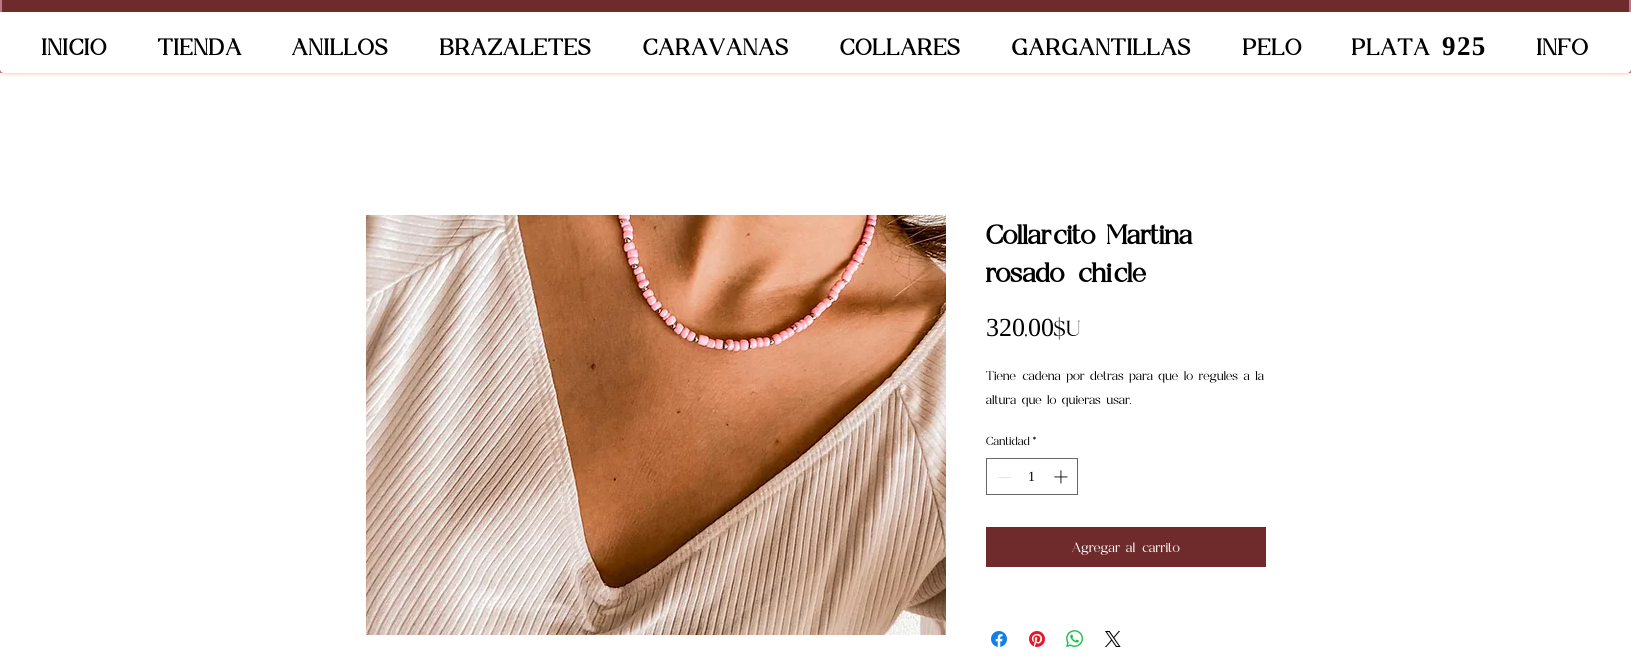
import math
import cairo

surface = cairo.ImageSurface(cairo.FORMAT_RGB24, 1631, 665)
cr = cairo.Context(surface)
options = cairo.FontOptions()
options.set_hint_metrics(cairo.HINT_METRICS_OFF)
options.set_hint_style(cairo.HINT_STYLE_NONE)
cr.set_font_options(options)
cr.set_miter_limit(4)


def rgb(code):
    cr.set_source_rgb(*(v / 255 for v in bytes.fromhex(code[-6:])))


def tracked(x, y, s, letter, word):
    cr.move_to(x, y)
    for ch in s:
        cr.show_text(ch)
        cr.rel_move_to(letter + word * (ch == ' '), 0)


def rrect(x, y, w, h, r):
    cr.new_sub_path()
    for i, (u, v) in enumerate([(x + w - r, y + h - r), (x + r, y + h - r), (x + r, y + r), (x + w - r, y + r)]):
        cr.arc(u, v, r, i * math.pi / 2, (i + 1) * math.pi / 2)
    cr.close_path()


def soft_shadow(x, y, w, h, r, blur, alpha):
    cr.push_group_with_content(cairo.CONTENT_ALPHA)
    cr.set_operator(cairo.OPERATOR_SOURCE)
    for i in range(15, -16, -2):
        e = blur * i / 6
        if min(w, h) + 2 * e > 0:
            cr.set_source_rgba(0, 0, 0, alpha * math.erfc((i - 1) / 8.5) / 2)
            rrect(x - e, y - e, w + 2 * e, h + 2 * e, max(0, min(r + e + blur * .6, min(w, h) / 2 + e)))
            cr.fill()
    cr.mask(cr.pop_group())


def image(path, x, y, w, h):
    cr.save()
    cr.set_source_surface(cairo.ImageSurface.create_from_png(path), x, y)
    cr.rectangle(x, y, w, h)
    cr.fill()
    cr.restore()


rgb("#bf778a")
cr.paint()
rgb("#ffffff")
cr.rectangle(0, 73, 1631, 592)
cr.fill()
cr.save()
cr.set_fill_rule(cairo.FILL_RULE_EVEN_ODD)
cr.new_path()
cr.move_to(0, 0)
cr.line_to(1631, 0)
cr.line_to(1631, 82)
cr.line_to(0, 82)
cr.close_path()
cr.move_to(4, 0)
cr.line_to(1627, 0)
cr.curve_to(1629, 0, 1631, 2, 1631, 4)
cr.line_to(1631, 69)
cr.curve_to(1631, 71, 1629, 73, 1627, 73)
cr.line_to(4, 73)
cr.curve_to(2, 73, 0, 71, 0, 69)
cr.line_to(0, 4)
cr.curve_to(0, 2, 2, 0, 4, 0)
cr.close_path()
cr.clip()
rgb("#ef6d3c")
soft_shadow(0, 0, 1631, 73, 4, 2.5, 0.5)
cr.restore()
rgb("#6f2b2b")
cr.rectangle(2, 0, 1627, 12)
cr.fill()
rgb("#ffffff")
cr.new_path()
cr.move_to(0, 12)
cr.line_to(0, 69)
cr.curve_to(0, 71, 2, 73, 4, 73)
cr.line_to(1627, 73)
cr.curve_to(1629, 73, 1631, 71, 1631, 69)
cr.line_to(1631, 12)
cr.close_path()
cr.fill()
image("img/1.png", 366, 215, 580, 420)
cr.rectangle(986.5, 458.5, 91, 36)
rgb("#666666")
cr.set_line_width(1)
cr.stroke()
rgb("#e3e3e3")
cr.rectangle(998, 477, 13, 1)
cr.fill()
image("img/2.png", 1054, 470, 14, 14)
rgb("#6f2b2b")
cr.rectangle(986, 527, 280, 40)
cr.fill()
image("img/3.png", 991, 631, 16, 16)
image("img/4.png", 1029, 631, 16, 16)
image("img/5.png", 1066, 630, 17, 17)
image("img/6.png", 1105, 631, 16, 16)
cr.select_font_face("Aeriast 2", cairo.FONT_SLANT_NORMAL, cairo.FONT_WEIGHT_BOLD)
cr.set_font_size(27)
rgb("#000000")
for x, y, s in [
    (42, 55, "INICIO"),
    (158, 55, "TIENDA"),
    (292, 55, "ANILLOS"),
    (440, 55, "BRAZALETES"),
    (643, 55, "CARAVANAS"),
    (840, 55, "COLLARES"),
    (1012, 55, "GARGANTILLAS"),
    (1243, 55, "PELO"),
    (1352, 55, "PLATA"),
]:
    tracked(x, y, s, 1.4, 0)
cr.select_font_face("Liberation Serif", cairo.FONT_SLANT_NORMAL, cairo.FONT_WEIGHT_BOLD)
tracked(1442, 55, "925", 1.4, 0)
cr.select_font_face("Aeriast 2", cairo.FONT_SLANT_NORMAL, cairo.FONT_WEIGHT_BOLD)
tracked(1537, 55, "INFO", 1.4, 0)
cr.select_font_face("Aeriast", cairo.FONT_SLANT_NORMAL, cairo.FONT_WEIGHT_BOLD)
cr.set_font_size(32)
cr.move_to(986, 244)
cr.show_text("Collarcito Martina")
cr.move_to(986, 282)
cr.show_text("rosado chicle")
cr.select_font_face("Liberation Serif")
cr.set_font_size(26)
cr.move_to(986, 336)
cr.show_text("320")
cr.select_font_face("Aeriast")
cr.move_to(1025, 336)
cr.show_text(",")
cr.select_font_face("Liberation Serif")
cr.move_to(1028, 336)
cr.show_text("00")
cr.select_font_face("Aeriast")
cr.move_to(1054, 336)
cr.show_text("$U")
cr.set_font_size(15)
cr.move_to(986, 380)
cr.show_text("Tiene cadena por detras para que lo regules a la")
cr.save()
cr.rectangle(986, 363, 280, 48)
cr.clip()
cr.move_to(986, 404)
cr.show_text("altura que lo quieras usar.")
cr.restore()
cr.set_font_size(14)
cr.move_to(986, 445)
cr.show_text("Cantidad")
cr.move_to(1033, 445)
cr.show_text("*")
cr.select_font_face("Liberation Serif")
cr.move_to(1028, 481)
cr.show_text("1")
cr.select_font_face("Aeriast")
cr.set_font_size(16)
rgb("#ffffff")
cr.move_to(1072, 552)
cr.show_text("Agregar al carrito")
surface.write_to_png("page.png")
